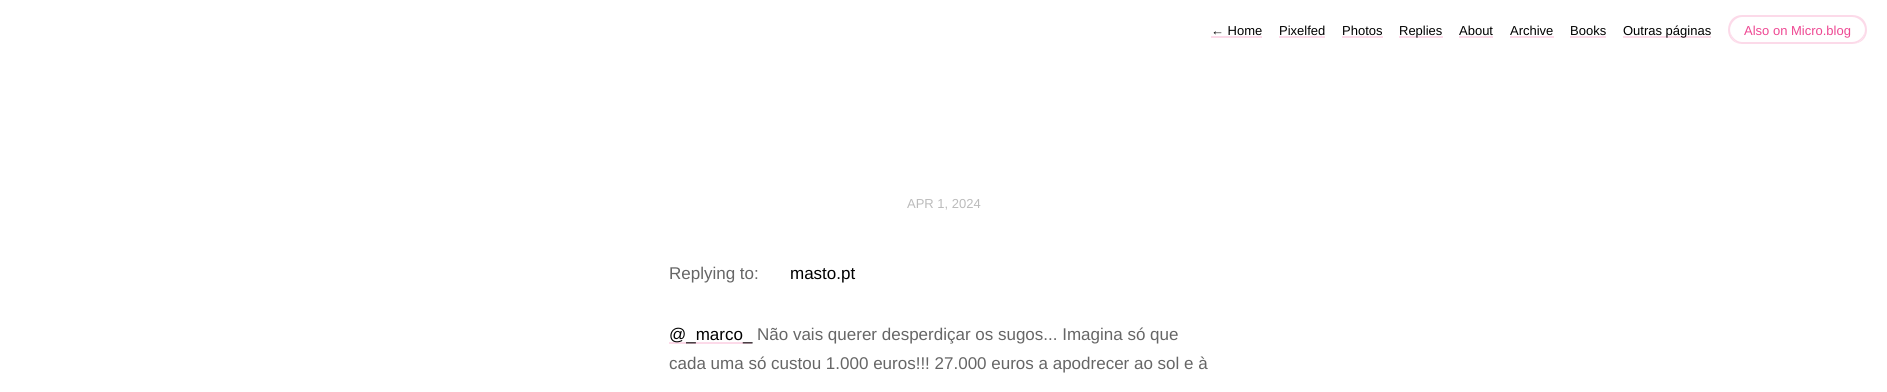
import math
import cairo

surface = cairo.ImageSurface(cairo.FORMAT_RGB24, 1887, 392)
cr = cairo.Context(surface)
options = cairo.FontOptions()
options.set_hint_metrics(cairo.HINT_METRICS_OFF)
options.set_hint_style(cairo.HINT_STYLE_NONE)
cr.set_font_options(options)
cr.set_miter_limit(4)


def rgb(code):
    cr.set_source_rgb(*(v / 255 for v in bytes.fromhex(code[-6:])))


rgb("#ffffff")
cr.paint()
for x, y, w, h, color in [
    (1211, 36, 51, 2, "#fcdae9"),
    (1279, 36, 46, 2, "#fcdae9"),
    (1342, 36, 41, 2, "#fcdae9"),
    (1399, 36, 44, 2, "#fcdae9"),
    (1459, 36, 34, 2, "#fcdae9"),
    (1510, 36, 44, 2, "#fcdae9"),
    (1570, 36, 36, 2, "#fcdae9"),
    (1623, 36, 88, 2, "#fcdae9"),
]:
    rgb(color)
    cr.rectangle(x, y, w, h)
    cr.fill()
cr.new_path()
cr.move_to(1730, 29)
cr.line_to(1730, 30)
cr.curve_to(1730, 38, 1736, 44, 1742, 44)
cr.line_to(1852, 44)
cr.curve_to(1859, 44, 1865, 38, 1865, 30)
cr.line_to(1865, 29)
cr.curve_to(1865, 36, 1859, 42, 1852, 42)
cr.line_to(1742, 42)
cr.curve_to(1736, 42, 1730, 36, 1730, 29)
cr.close_path()
cr.fill()
cr.set_fill_rule(cairo.FILL_RULE_EVEN_ODD)
cr.new_path()
cr.move_to(1742, 15)
cr.line_to(1852, 15)
cr.curve_to(1861, 15, 1867, 21, 1867, 30)
cr.curve_to(1867, 38, 1861, 44, 1852, 44)
cr.line_to(1742, 44)
cr.curve_to(1734, 44, 1728, 38, 1728, 30)
cr.curve_to(1728, 21, 1734, 15, 1742, 15)
cr.close_path()
cr.move_to(1742, 17)
cr.line_to(1852, 17)
cr.curve_to(1859, 17, 1865, 23, 1865, 30)
cr.curve_to(1865, 38, 1859, 44, 1852, 44)
cr.line_to(1742, 44)
cr.curve_to(1736, 44, 1730, 38, 1730, 30)
cr.curve_to(1730, 23, 1736, 17, 1742, 17)
cr.close_path()
cr.fill()
cr.rectangle(669, 342, 83, 2)
cr.fill()
cr.select_font_face("Liberation Sans")
cr.set_font_size(13)
rgb("#000000")
for x, y, s in [
    (1211, 35, "← Home"),
    (1279, 35, "Pixelfed"),
    (1342, 35, "Photos"),
    (1399, 35, "Replies"),
    (1459, 35, "About"),
    (1510, 35, "Archive"),
    (1570, 35, "Books"),
    (1623, 35, "Outras páginas"),
]:
    cr.move_to(x, y)
    cr.show_text(s)
rgb("#ee4792")
cr.move_to(1744, 35)
cr.show_text("Also on Micro.blog")
rgb("#bbbbbb")
cr.move_to(907, 208)
cr.show_text("APR 1, 2024")
cr.set_font_size(17)
rgb("#666666")
cr.move_to(669, 279)
cr.show_text("Replying to:")
rgb("#000000")
cr.move_to(790, 279)
cr.show_text("masto.pt")
cr.move_to(669, 340)
cr.show_text("@_marco_")
rgb("#666666")
cr.move_to(757, 340)
cr.show_text("Não vais querer desperdiçar os sugos... Imagina só que")
cr.move_to(669, 369)
cr.show_text("cada uma só custou 1.000 euros!!! 27.000 euros a apodrecer ao sol e à")
surface.write_to_png("page.png")
